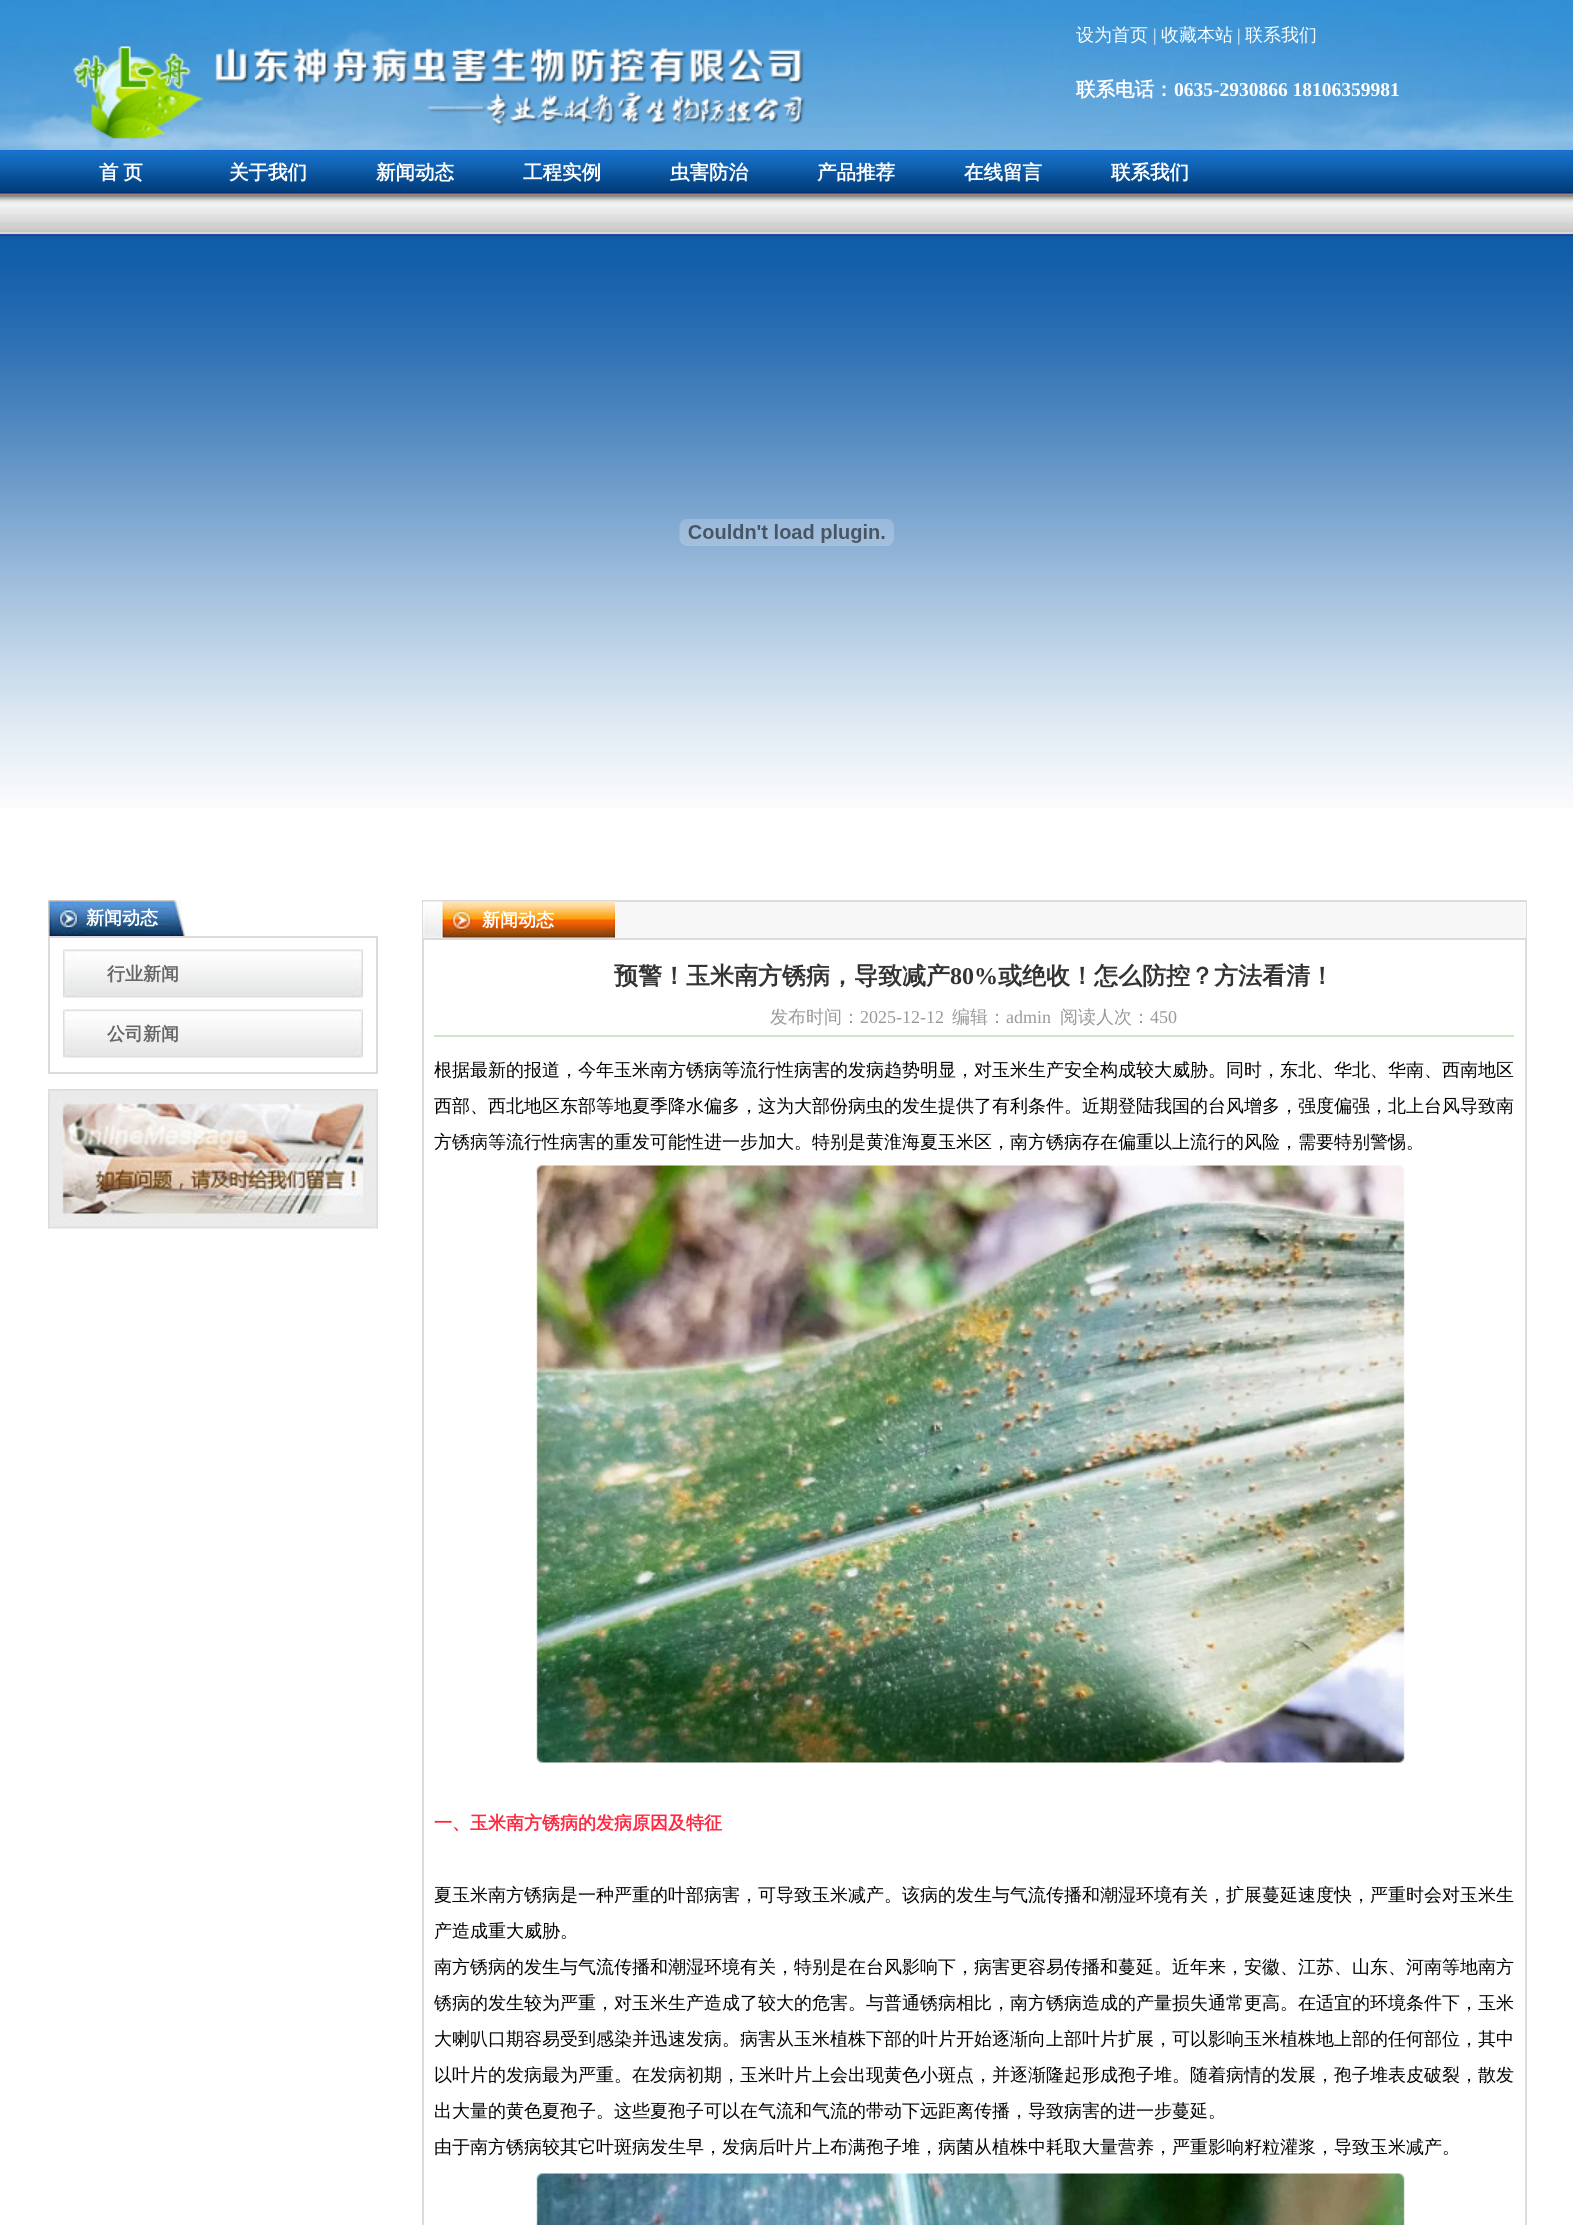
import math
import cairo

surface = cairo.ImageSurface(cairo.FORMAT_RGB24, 1573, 2225)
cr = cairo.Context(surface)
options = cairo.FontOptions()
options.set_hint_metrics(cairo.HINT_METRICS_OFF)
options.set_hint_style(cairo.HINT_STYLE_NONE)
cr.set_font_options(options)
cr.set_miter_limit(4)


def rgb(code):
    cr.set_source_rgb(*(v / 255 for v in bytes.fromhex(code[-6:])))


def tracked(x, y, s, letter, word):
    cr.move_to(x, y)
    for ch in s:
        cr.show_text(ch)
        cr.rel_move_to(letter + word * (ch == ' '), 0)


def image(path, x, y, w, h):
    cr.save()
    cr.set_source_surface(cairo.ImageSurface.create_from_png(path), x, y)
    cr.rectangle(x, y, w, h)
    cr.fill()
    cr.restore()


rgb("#ffffff")
cr.paint()
image("img/1.png", 0, 150, 1573, 658)
image("img/2.png", 0, 0, 1573, 150)
image("img/3.png", 73, 46, 732, 93)
image("img/4.png", 679, 519, 215, 27)
image("img/5.png", 48, 900, 137, 36)
cr.rectangle(49, 937, 328, 136)
rgb("#dcdcdc")
cr.stroke()
image("img/6.png", 63, 949, 300, 49)
image("img/6.png", 63, 1009, 300, 49)
image("img/7.png", 48, 1089, 330, 140)
cr.rectangle(423, 901, 1103, 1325)
cr.stroke()
rgb("#f7f7f7")
cr.rectangle(423, 902, 1103, 36)
cr.fill()
image("img/8.png", 423, 901, 192, 37)
rgb("#dcdcdc")
cr.rectangle(423, 938, 1103, 2)
cr.fill()
rgb("#cce5c5")
cr.rectangle(434, 1035, 1080, 2)
cr.fill()
image("img/9.png", 536, 1165, 869, 598)
image("img/10.png", 536, 2173, 869, 52)
cr.select_font_face("WenQuanYi Zen Hei Medium")
cr.set_font_size(18)
rgb("#ffffff")
cr.move_to(1076, 41)
cr.show_text("设为首页")
cr.select_font_face("Liberation Serif")
cr.move_to(1153, 41)
cr.show_text("|")
cr.select_font_face("WenQuanYi Zen Hei Medium")
cr.move_to(1161, 41)
cr.show_text("收藏本站")
cr.select_font_face("Liberation Serif")
cr.move_to(1237, 41)
cr.show_text("|")
cr.select_font_face("WenQuanYi Zen Hei Medium")
cr.move_to(1245, 41)
cr.show_text("联系我们")
cr.select_font_face("WenQuanYi Zen Hei", cairo.FONT_SLANT_NORMAL, cairo.FONT_WEIGHT_BOLD)
cr.set_font_size(19.5)
cr.move_to(1076, 96)
cr.show_text("联系电话：")
cr.select_font_face("Liberation Serif", cairo.FONT_SLANT_NORMAL, cairo.FONT_WEIGHT_BOLD)
cr.move_to(1174, 96)
cr.show_text("0635-2930866 18106359981")
cr.select_font_face("WenQuanYi Zen Hei", cairo.FONT_SLANT_NORMAL, cairo.FONT_WEIGHT_BOLD)
tracked(99, 179, "首 页", 0, -1)
for x, y, s in [
    (229, 179, "关于我们"),
    (376, 179, "新闻动态"),
    (523, 179, "工程实例"),
    (670, 179, "虫害防治"),
    (817, 179, "产品推荐"),
    (964, 179, "在线留言"),
    (1111, 179, "联系我们"),
]:
    cr.move_to(x, y)
    cr.show_text(s)
cr.set_font_size(18)
cr.move_to(86, 924)
cr.show_text("新闻动态")
rgb("#666666")
cr.move_to(107, 980)
cr.show_text("行业新闻")
cr.move_to(107, 1040)
cr.show_text("公司新闻")
rgb("#ffffff")
cr.move_to(482, 926)
cr.show_text("新闻动态")
cr.set_font_size(24)
rgb("#333333")
cr.move_to(614, 984)
cr.show_text("预警！玉米南方锈病，导致减产")
cr.select_font_face("Liberation Serif", cairo.FONT_SLANT_NORMAL, cairo.FONT_WEIGHT_BOLD)
cr.move_to(950, 984)
cr.show_text("80%")
cr.select_font_face("WenQuanYi Zen Hei", cairo.FONT_SLANT_NORMAL, cairo.FONT_WEIGHT_BOLD)
cr.move_to(998, 984)
cr.show_text("或绝收！怎么防控？方法看清！")
cr.select_font_face("WenQuanYi Zen Hei Medium")
cr.set_font_size(18)
rgb("#999999")
cr.move_to(770, 1023)
cr.show_text("发布时间：")
cr.select_font_face("Liberation Serif")
cr.move_to(860, 1023)
cr.show_text("2025-12-12")
cr.select_font_face("WenQuanYi Zen Hei Medium")
cr.move_to(952, 1023)
cr.show_text("编辑：")
cr.select_font_face("Liberation Serif")
cr.move_to(1006, 1023)
cr.show_text("admin")
cr.select_font_face("WenQuanYi Zen Hei Medium")
cr.move_to(1060, 1023)
cr.show_text("阅读人次：")
cr.select_font_face("Liberation Serif")
cr.move_to(1150, 1023)
cr.show_text("450")
cr.select_font_face("WenQuanYi Zen Hei Medium")
rgb("#000000")
for x, y, s in [
    (434, 1076, "根据最新的报道，今年玉米南方锈病等流行性病害的发病趋势明显，对玉米生产安全构成较大威胁。同时，东北、华北、华南、西南地区"),
    (434, 1112, "西部、西北地区东部等地夏季降水偏多，这为大部份病虫的发生提供了有利条件。近期登陆我国的台风增多，强度偏强，北上台风导致南"),
    (434, 1148, "方锈病等流行性病害的重发可能性进一步加大。特别是黄淮海夏玉米区，南方锈病存在偏重以上流行的风险，需要特别警惕。"),
]:
    cr.move_to(x, y)
    cr.show_text(s)
cr.select_font_face("WenQuanYi Zen Hei", cairo.FONT_SLANT_NORMAL, cairo.FONT_WEIGHT_BOLD)
rgb("#ff2941")
cr.move_to(434, 1829)
cr.show_text("一、玉米南方锈病的发病原因及特征")
cr.select_font_face("WenQuanYi Zen Hei Medium")
rgb("#000000")
for x, y, s in [
    (434, 1901, "夏玉米南方锈病是一种严重的叶部病害，可导致玉米减产。该病的发生与气流传播和潮湿环境有关，扩展蔓延速度快，严重时会对玉米生"),
    (434, 1937, "产造成重大威胁。"),
    (434, 1973, "南方锈病的发生与气流传播和潮湿环境有关，特别是在台风影响下，病害更容易传播和蔓延。近年来，安徽、江苏、山东、河南等地南方"),
    (434, 2009, "锈病的发生较为严重，对玉米生产造成了较大的危害。与普通锈病相比，南方锈病造成的产量损失通常更高。在适宜的环境条件下，玉米"),
    (434, 2045, "大喇叭口期容易受到感染并迅速发病。病害从玉米植株下部的叶片开始逐渐向上部叶片扩展，可以影响玉米植株地上部的任何部位，其中"),
    (434, 2081, "以叶片的发病最为严重。在发病初期，玉米叶片上会出现黄色小斑点，并逐渐隆起形成孢子堆。随着病情的发展，孢子堆表皮破裂，散发"),
    (434, 2117, "出大量的黄色夏孢子。这些夏孢子可以在气流和气流的带动下远距离传播，导致病害的进一步蔓延。"),
    (434, 2153, "由于南方锈病较其它叶斑病发生早，发病后叶片上布满孢子堆，病菌从植株中耗取大量营养，严重影响籽粒灌浆，导致玉米减产。"),
]:
    cr.move_to(x, y)
    cr.show_text(s)
surface.write_to_png("page.png")
